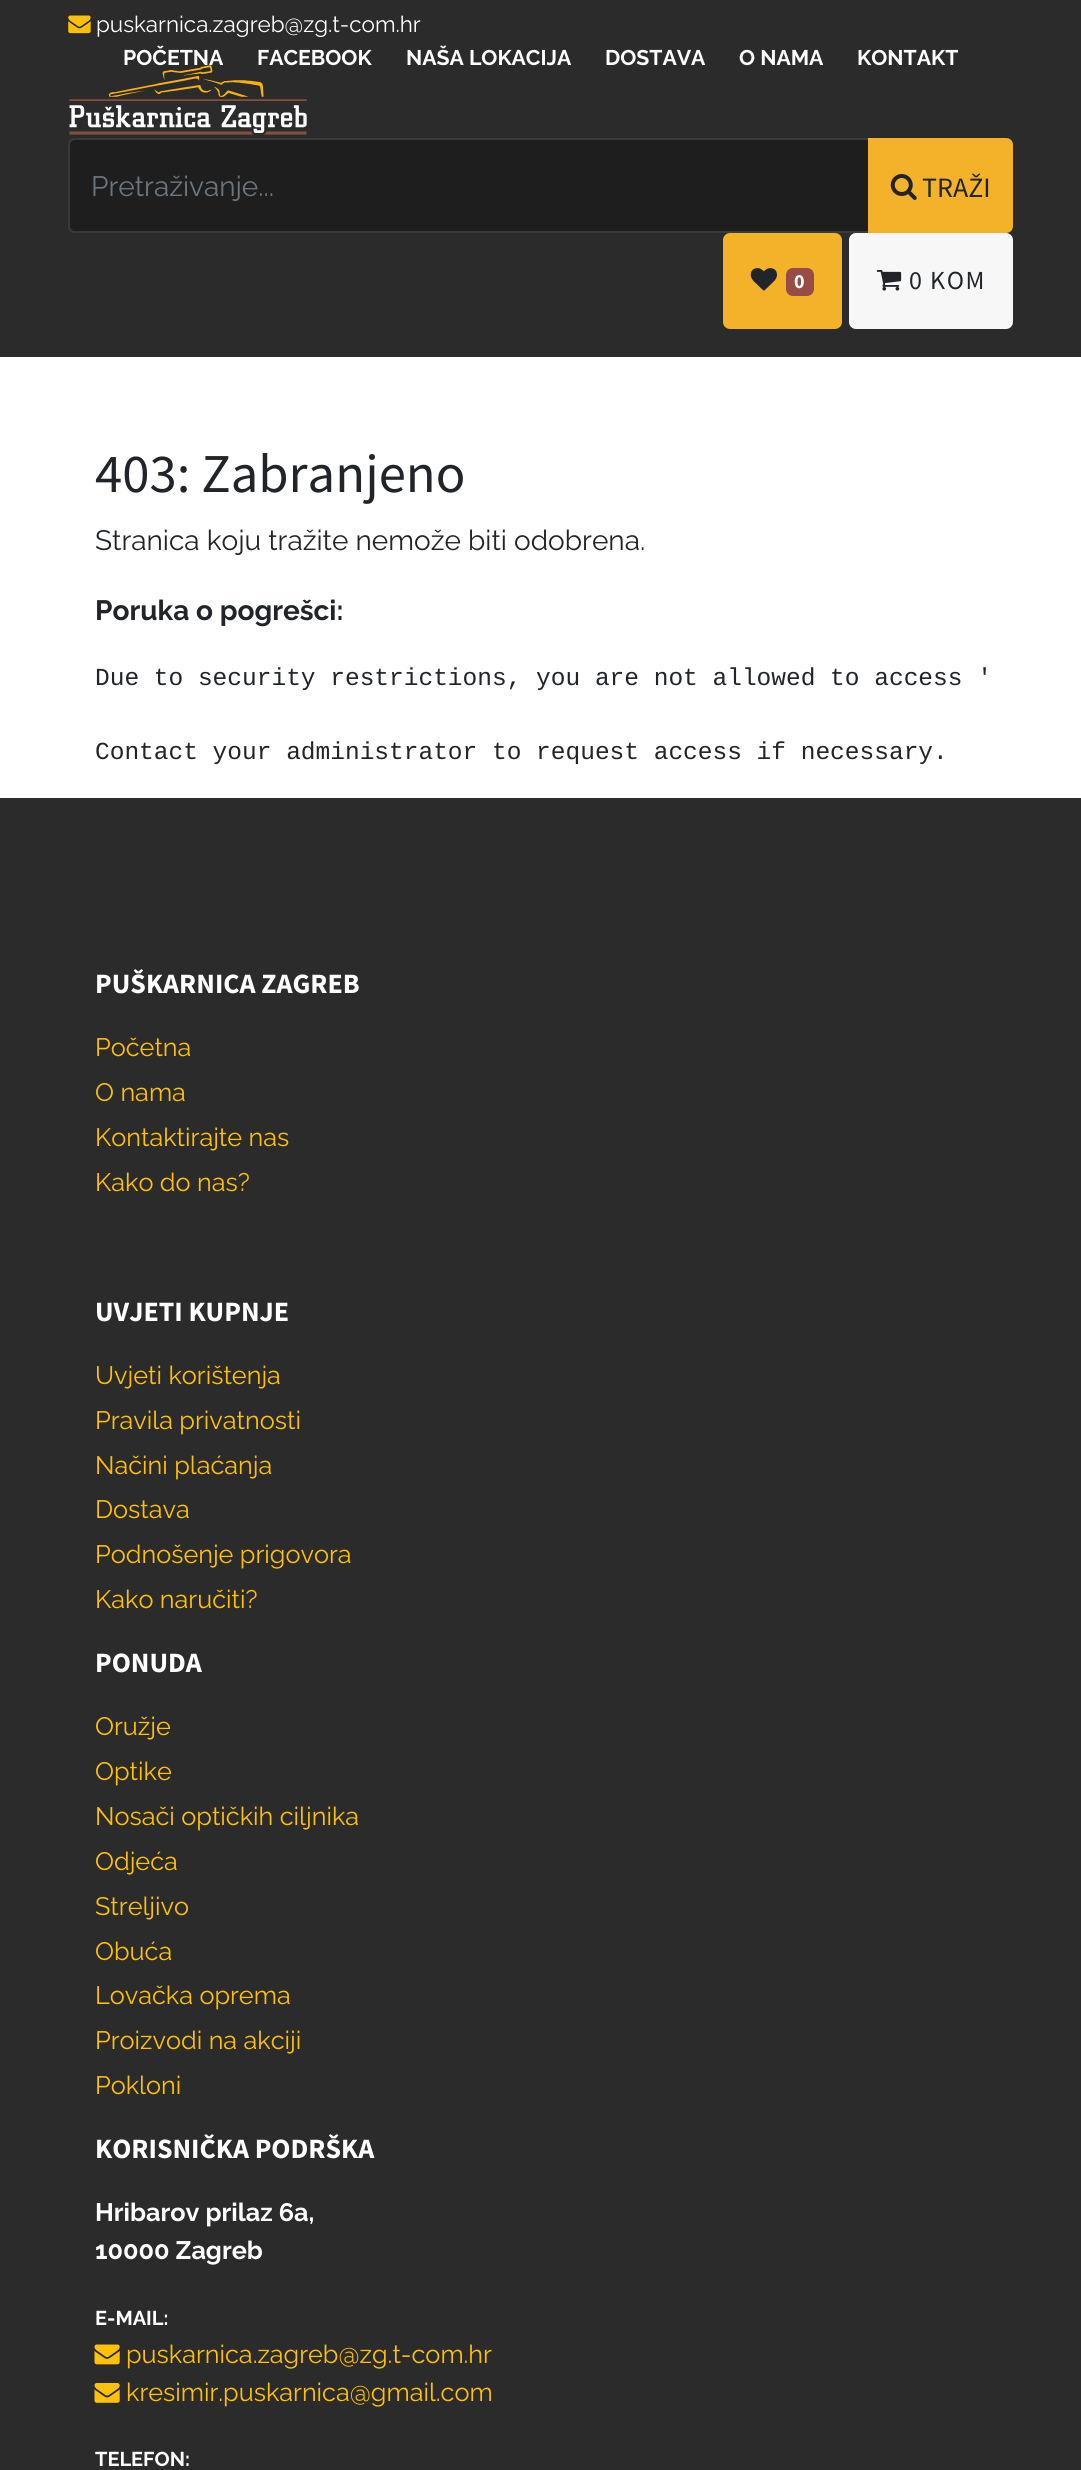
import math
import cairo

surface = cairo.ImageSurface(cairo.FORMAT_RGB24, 1081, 2470)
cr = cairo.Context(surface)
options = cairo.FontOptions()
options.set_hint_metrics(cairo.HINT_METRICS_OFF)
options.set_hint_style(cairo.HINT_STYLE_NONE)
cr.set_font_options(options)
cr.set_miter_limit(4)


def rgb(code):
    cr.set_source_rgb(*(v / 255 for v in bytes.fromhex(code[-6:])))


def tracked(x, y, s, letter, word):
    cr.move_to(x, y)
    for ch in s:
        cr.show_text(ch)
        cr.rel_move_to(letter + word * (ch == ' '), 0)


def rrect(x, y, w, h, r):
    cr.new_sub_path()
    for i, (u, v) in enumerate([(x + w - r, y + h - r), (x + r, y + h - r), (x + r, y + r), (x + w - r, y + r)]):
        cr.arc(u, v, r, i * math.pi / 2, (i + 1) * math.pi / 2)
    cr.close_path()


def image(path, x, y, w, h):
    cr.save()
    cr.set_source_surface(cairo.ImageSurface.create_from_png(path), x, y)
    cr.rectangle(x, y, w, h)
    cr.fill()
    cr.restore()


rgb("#ffffff")
cr.paint()
rgb("#2b2b2b")
cr.rectangle(0, 0, 1081, 357)
cr.fill()
image("img/1.png", 68, 15, 23, 19)
rgb("#1e1e1e")
cr.new_path()
cr.move_to(75, 139)
cr.line_to(869, 139)
cr.line_to(869, 232)
cr.line_to(75, 232)
cr.curve_to(71.5, 232, 69, 229.5, 69, 226)
cr.line_to(69, 145)
cr.curve_to(69, 141.5, 71.5, 139, 75, 139)
cr.close_path()
cr.fill_preserve()
rgb("#3a3a3a")
cr.stroke()
rgb("#f3b229")
cr.new_path()
cr.move_to(869, 139)
cr.line_to(1006, 139)
cr.curve_to(1009.5, 139, 1012, 141.5, 1012, 145)
cr.line_to(1012, 226)
cr.curve_to(1012, 229.5, 1009.5, 232, 1006, 232)
cr.line_to(869, 232)
cr.close_path()
cr.fill_preserve()
cr.stroke()
image("img/3.png", 890, 174, 27, 26)
rrect(723, 233, 119, 96, 7)
cr.fill()
image("img/4.png", 750, 268, 27, 23)
rgb("#984c46")
rrect(786, 268, 28, 28, 7)
cr.fill()
rgb("#f7f7f7")
rrect(849, 233, 164, 96, 7)
cr.fill()
image("img/5.png", 876, 270, 26, 21)
rgb("#2b2b2b")
cr.rectangle(0, 798, 1081, 1672)
cr.fill()
image("img/6.png", 94, 2344, 26, 21)
image("img/7.png", 94, 2383, 26, 20)
cr.select_font_face("Raleway")
cr.set_font_size(22.4)
rgb("#ffffff")
cr.move_to(96, 32)
cr.show_text("puskarnica.zagreb@zg.t-com.hr")
cr.select_font_face("Raleway", cairo.FONT_SLANT_NORMAL, cairo.FONT_WEIGHT_BOLD)
cr.set_font_size(21.25)
for x, y, s in [
    (123, 65, "POČETNA"),
    (257, 65, "FACEBOOK"),
    (406, 65, "NAŠA LOKACIJA"),
    (605, 65, "DOSTAVA"),
    (739, 65, "O NAMA"),
    (857, 65, "KONTAKT"),
]:
    cr.move_to(x, y)
    cr.show_text(s)
image("img/2.png", 69, 65, 238, 70)
cr.select_font_face("Raleway")
cr.set_font_size(28)
rgb("#6c757d")
cr.move_to(91, 196)
cr.show_text("Pretraživanje...")
cr.select_font_face("Source Sans Pro")
rgb("#212529")
cr.move_to(922, 197)
cr.show_text("TRAŽI")
cr.select_font_face("Source Sans Pro", cairo.FONT_SLANT_NORMAL, cairo.FONT_WEIGHT_BOLD)
cr.set_font_size(20)
rgb("#ffffff")
tracked(794, 288, "0", 1.5, 0)
cr.select_font_face("Source Sans Pro")
cr.set_font_size(26)
rgb("#212529")
tracked(909, 289, "0 KOM", 1.5, 0)
cr.set_font_size(54.75)
cr.move_to(95, 492)
cr.show_text("403: Zabranjeno")
cr.select_font_face("Raleway")
cr.set_font_size(28)
cr.move_to(95, 550)
cr.show_text("Stranica koju tražite nemože biti odobrena.")
cr.select_font_face("Raleway", cairo.FONT_SLANT_NORMAL, cairo.FONT_WEIGHT_BOLD)
cr.move_to(95, 620)
cr.show_text("Poruka o pogrešci:")
cr.select_font_face("Liberation Mono")
cr.set_font_size(24.5)
cr.move_to(95, 685)
cr.show_text("Due to security restrictions, you are not allowed to access '")
cr.move_to(95, 759)
cr.show_text("Contact your administrator to request access if necessary.")
cr.select_font_face("Source Sans Pro", cairo.FONT_SLANT_NORMAL, cairo.FONT_WEIGHT_BOLD)
cr.set_font_size(28)
rgb("#ffffff")
cr.move_to(95, 993)
cr.show_text("PUŠKARNICA ZAGREB")
cr.select_font_face("Raleway")
cr.set_font_size(25.25)
rgb("#ffc107")
for x, y, s in [
    (95, 1056, "Početna"),
    (95, 1101, "O nama"),
    (95, 1146, "Kontaktirajte nas"),
    (95, 1191, "Kako do nas?"),
]:
    cr.move_to(x, y)
    cr.show_text(s)
cr.select_font_face("Source Sans Pro", cairo.FONT_SLANT_NORMAL, cairo.FONT_WEIGHT_BOLD)
cr.set_font_size(28)
rgb("#ffffff")
cr.move_to(95, 1321)
cr.show_text("UVJETI KUPNJE")
cr.select_font_face("Raleway")
cr.set_font_size(25.25)
rgb("#ffc107")
for x, y, s in [
    (95, 1384, "Uvjeti korištenja"),
    (95, 1429, "Pravila privatnosti"),
    (95, 1474, "Načini plaćanja"),
    (95, 1518, "Dostava"),
    (95, 1563, "Podnošenje prigovora"),
    (95, 1608, "Kako naručiti?"),
]:
    cr.move_to(x, y)
    cr.show_text(s)
cr.select_font_face("Source Sans Pro", cairo.FONT_SLANT_NORMAL, cairo.FONT_WEIGHT_BOLD)
cr.set_font_size(28)
rgb("#ffffff")
cr.move_to(95, 1672)
cr.show_text("PONUDA")
cr.select_font_face("Raleway")
cr.set_font_size(25.25)
rgb("#ffc107")
for x, y, s in [
    (95, 1735, "Oružje"),
    (95, 1780, "Optike"),
    (95, 1825, "Nosači optičkih ciljnika"),
    (95, 1870, "Odjeća"),
    (95, 1915, "Streljivo"),
    (95, 1960, "Obuća"),
    (95, 2004, "Lovačka oprema"),
    (95, 2049, "Proizvodi na akciji"),
    (95, 2094, "Pokloni"),
]:
    cr.move_to(x, y)
    cr.show_text(s)
cr.select_font_face("Source Sans Pro", cairo.FONT_SLANT_NORMAL, cairo.FONT_WEIGHT_BOLD)
cr.set_font_size(28)
rgb("#ffffff")
cr.move_to(95, 2158)
cr.show_text("KORISNIČKA PODRŠKA")
cr.select_font_face("Raleway", cairo.FONT_SLANT_NORMAL, cairo.FONT_WEIGHT_BOLD)
cr.set_font_size(25.25)
cr.move_to(95, 2221)
cr.show_text("Hribarov prilaz 6a,")
cr.move_to(95, 2259)
cr.show_text("10000 Zagreb")
cr.set_font_size(20)
cr.move_to(95, 2325)
cr.show_text("E-MAIL:")
cr.select_font_face("Raleway")
cr.set_font_size(25.25)
rgb("#ffc107")
cr.move_to(126, 2363)
cr.show_text("puskarnica.zagreb@zg.t-com.hr")
cr.move_to(126, 2401)
cr.show_text("kresimir.puskarnica@gmail.com")
cr.select_font_face("Raleway", cairo.FONT_SLANT_NORMAL, cairo.FONT_WEIGHT_BOLD)
cr.set_font_size(20)
rgb("#ffffff")
cr.move_to(95, 2466)
cr.show_text("TELEFON:")
surface.write_to_png("page.png")
